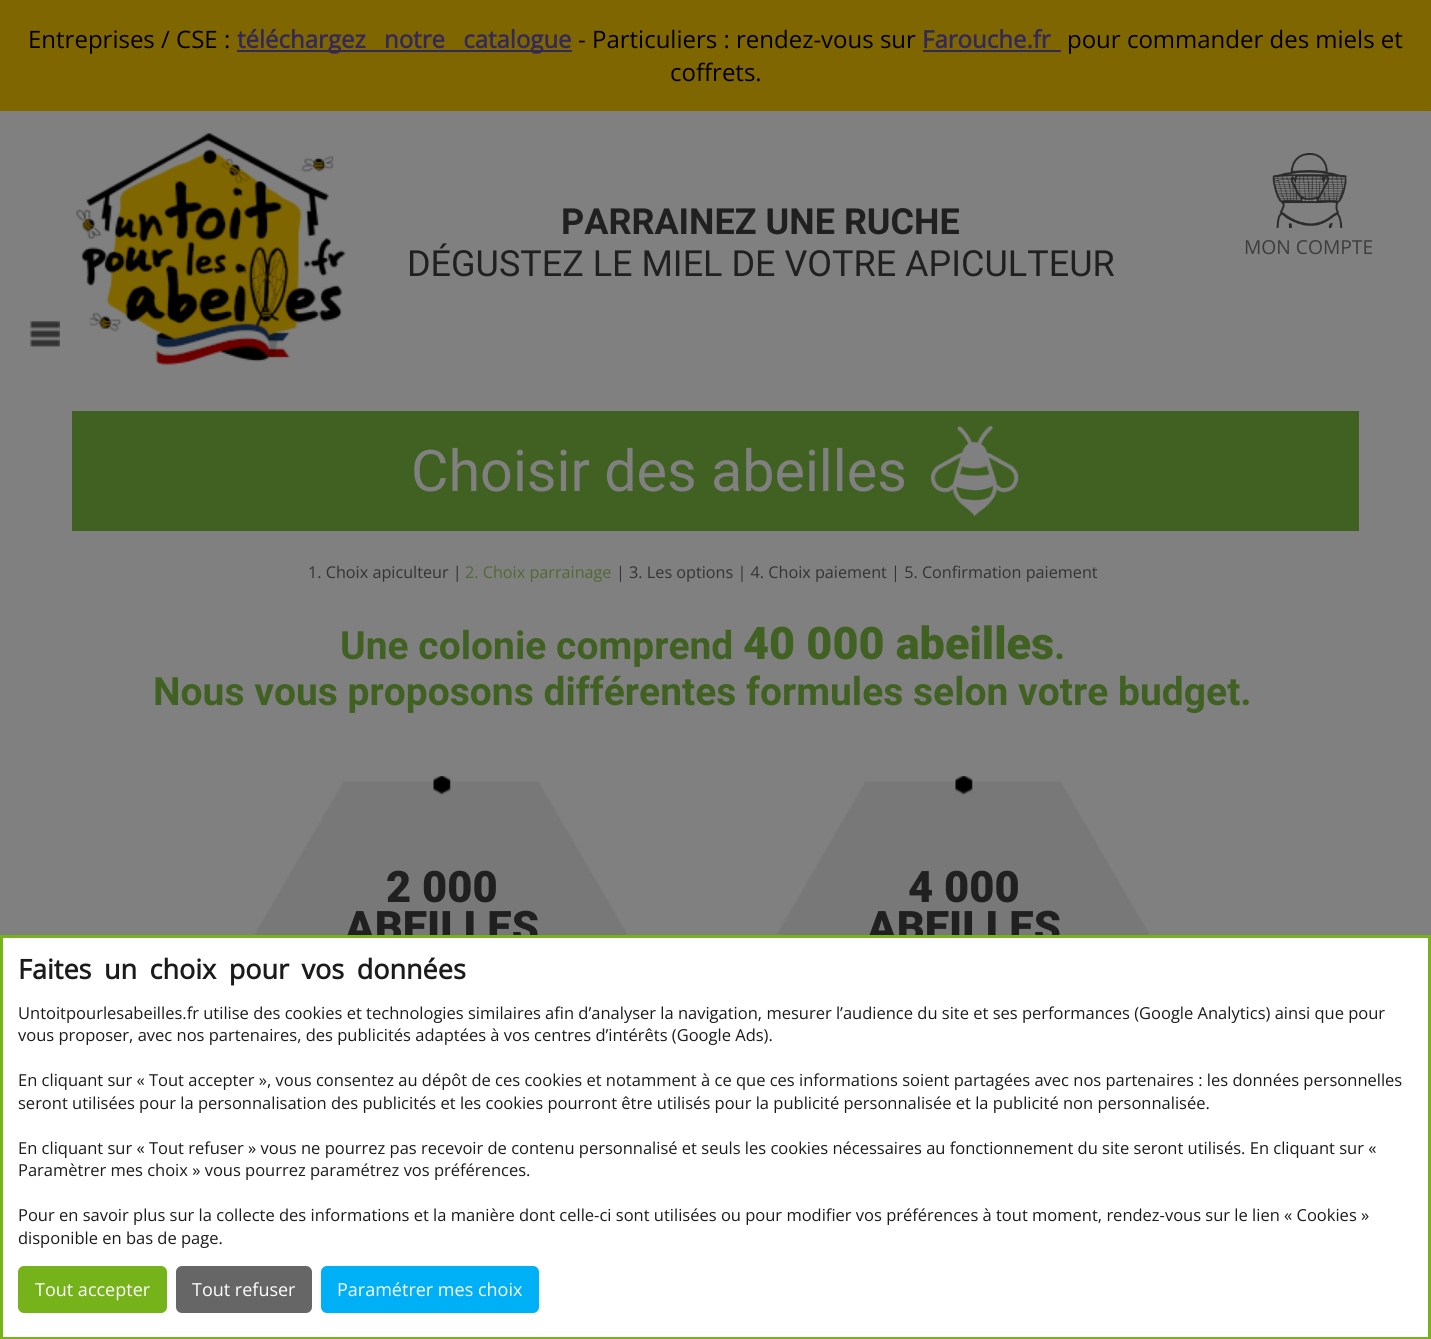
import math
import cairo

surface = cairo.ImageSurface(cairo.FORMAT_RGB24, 1431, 1339)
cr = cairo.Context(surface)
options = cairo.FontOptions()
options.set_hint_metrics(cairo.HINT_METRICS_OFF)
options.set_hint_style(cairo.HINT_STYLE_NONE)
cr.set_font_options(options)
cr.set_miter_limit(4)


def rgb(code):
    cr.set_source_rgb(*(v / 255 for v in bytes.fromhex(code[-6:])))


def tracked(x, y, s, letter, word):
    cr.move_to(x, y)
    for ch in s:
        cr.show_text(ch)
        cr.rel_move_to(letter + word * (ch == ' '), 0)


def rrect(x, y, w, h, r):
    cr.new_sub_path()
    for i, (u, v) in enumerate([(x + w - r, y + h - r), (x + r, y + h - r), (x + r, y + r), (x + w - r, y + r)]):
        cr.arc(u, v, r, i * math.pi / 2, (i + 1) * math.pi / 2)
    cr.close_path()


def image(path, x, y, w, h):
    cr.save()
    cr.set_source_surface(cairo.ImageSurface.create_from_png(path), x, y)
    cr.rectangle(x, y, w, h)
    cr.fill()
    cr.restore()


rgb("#808080")
cr.paint()
for x, y, w, h, color in [
    (0, 0, 1431, 111, "#806600"),
    (237, 50, 335, 2, "#32295a"),
    (923, 50, 138, 2, "#32295a"),
]:
    rgb(color)
    cr.rectangle(x, y, w, h)
    cr.fill()
image("img/1.png", 76, 132, 270, 233)
image("img/2.png", 1272, 153, 75, 75)
rgb("#808080")
cr.rectangle(87, 318, 3, 7)
cr.fill()
image("img/3.png", 30, 321, 30, 26)
rgb("#416123")
cr.rectangle(72, 411, 1287, 120)
cr.fill()
image("img/4.png", 931, 426, 88, 90)
image("img/5.png", 253, 776, 376, 159)
image("img/5.png", 775, 776, 376, 159)
cr.select_font_face("Open Sans")
cr.set_font_size(24)
rgb("#000000")
cr.move_to(28, 48)
cr.show_text("Entreprises / CSE :")
cr.select_font_face("Open Sans", cairo.FONT_SLANT_NORMAL, cairo.FONT_WEIGHT_BOLD)
rgb("#32295a")
tracked(237, 48, "téléchargez notre catalogue", 0, 12)
cr.select_font_face("Open Sans")
rgb("#000000")
cr.move_to(578, 48)
cr.show_text("- Particuliers : rendez-vous sur")
cr.select_font_face("Open Sans", cairo.FONT_SLANT_NORMAL, cairo.FONT_WEIGHT_BOLD)
rgb("#32295a")
cr.move_to(922, 48)
cr.show_text("Farouche.fr")
cr.select_font_face("Open Sans")
rgb("#000000")
cr.move_to(1067, 48)
cr.show_text("pour commander des miels et")
cr.move_to(670, 81)
cr.show_text("coffrets.")
cr.select_font_face("Roboto", cairo.FONT_SLANT_NORMAL, cairo.FONT_WEIGHT_BOLD)
cr.set_font_size(36)
rgb("#202021")
cr.move_to(561, 234)
cr.show_text("PARRAINEZ UNE RUCHE")
cr.select_font_face("Roboto")
cr.move_to(407, 276)
cr.show_text("DÉGUSTEZ LE MIEL DE VOTRE APICULTEUR")
cr.select_font_face("Open Sans")
cr.set_font_size(19.25)
rgb("#3c3c3c")
cr.move_to(1244, 254)
cr.show_text("MON COMPTE")
cr.select_font_face("Roboto")
cr.set_font_size(57.5)
rgb("#808080")
cr.move_to(411, 491)
cr.show_text("Choisir des abeilles")
cr.select_font_face("Open Sans")
cr.set_font_size(16.2)
rgb("#333333")
cr.move_to(308, 578)
cr.show_text("1. Choix apiculteur |")
rgb("#506a34")
cr.move_to(465, 578)
cr.show_text("2. Choix parrainage")
rgb("#333333")
cr.move_to(616, 578)
cr.show_text("| 3. Les options | 4. Choix paiement | 5. Confirmation paiement")
cr.select_font_face("Roboto", cairo.FONT_SLANT_NORMAL, cairo.FONT_WEIGHT_BOLD)
cr.set_font_size(39)
rgb("#416123")
cr.move_to(340, 659)
cr.show_text("Une colonie comprend")
cr.select_font_face("Roboto Black")
cr.set_font_size(45)
cr.move_to(743, 659)
cr.show_text("40 000 abeilles")
cr.select_font_face("Roboto", cairo.FONT_SLANT_NORMAL, cairo.FONT_WEIGHT_BOLD)
cr.set_font_size(39)
cr.move_to(1054, 659)
cr.show_text(".")
cr.move_to(153, 705)
cr.show_text("Nous vous proposons différentes formules selon votre budget.")
cr.select_font_face("Roboto Black")
cr.set_font_size(43.5)
rgb("#202021")
for x, y, s in [
    (386, 902, "2 000"),
    (345, 942, "ABEILLES"),
    (908, 902, "4 000"),
    (867, 942, "ABEILLES"),
]:
    cr.move_to(x, y)
    cr.show_text(s)
rgb("#ffffff")
cr.rectangle(1.5, 936.5, 1428, 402)
cr.fill_preserve()
rgb("#76b31b")
cr.set_line_width(3)
cr.stroke()
cr.select_font_face("Open Sans", cairo.FONT_SLANT_NORMAL, cairo.FONT_WEIGHT_BOLD)
cr.set_font_size(27)
rgb("#1b1b1b")
tracked(18, 979, "Faites un choix pour vos données", 0, 5.5)
cr.select_font_face("Open Sans")
cr.set_font_size(16.5)
for x, y, s in [
    (18, 1019, "Untoitpourlesabeilles.fr utilise des cookies et technologies similaires afin d’analyser la navigation, mesurer l’audience du site et ses performances (Google Analytics) ainsi que pour"),
    (18, 1041, "vous proposer, avec nos partenaires, des publicités adaptées à vos centres d’intérêts (Google Ads)."),
    (18, 1086, "En cliquant sur « Tout accepter », vous consentez au dépôt de ces cookies et notamment à ce que ces informations soient partagées avec nos partenaires : les données personnelles"),
    (18, 1109, "seront utilisées pour la personnalisation des publicités et les cookies pourront être utilisés pour la publicité personnalisée et la publicité non personnalisée."),
    (18, 1154, "En cliquant sur « Tout refuser » vous ne pourrez pas recevoir de contenu personnalisé et seuls les cookies nécessaires au fonctionnement du site seront utilisés. En cliquant sur «"),
    (18, 1176, "Paramètrer mes choix » vous pourrez paramétrez vos préférences."),
    (18, 1221, "Pour en savoir plus sur la collecte des informations et la manière dont celle-ci sont utilisées ou pour modifier vos préférences à tout moment, rendez-vous sur le lien « Cookies »"),
    (18, 1244, "disponible en bas de page."),
]:
    cr.move_to(x, y)
    cr.show_text(s)
rgb("#76b31b")
rrect(18, 1266, 149, 47, 6)
cr.fill()
cr.set_font_size(18)
rgb("#ffffff")
cr.move_to(35, 1296)
cr.show_text("Tout accepter")
rgb("#666666")
rrect(176, 1266, 136, 47, 6)
cr.fill()
rgb("#ffffff")
cr.move_to(192, 1296)
cr.show_text("Tout refuser")
rgb("#00b0f7")
rrect(321, 1266, 218, 47, 6)
cr.fill()
rgb("#ffffff")
cr.move_to(337, 1296)
cr.show_text("Paramétrer mes choix")
surface.write_to_png("page.png")
